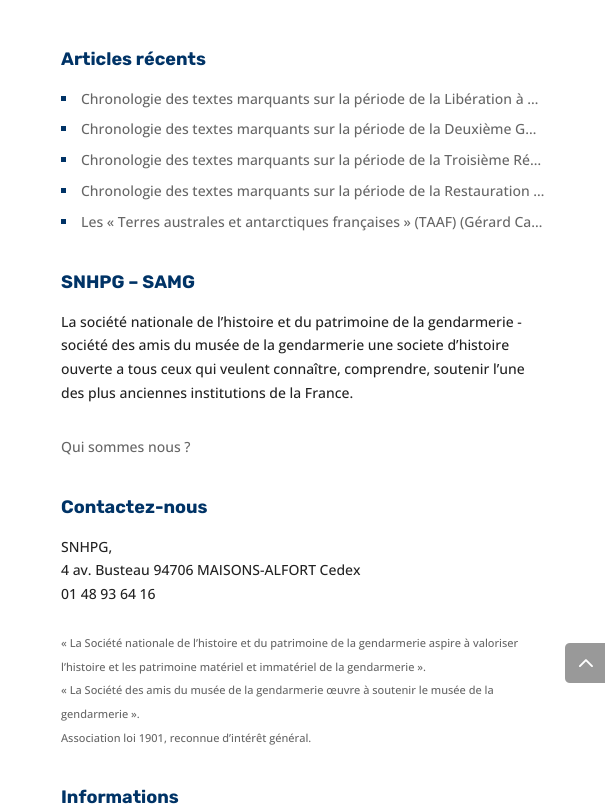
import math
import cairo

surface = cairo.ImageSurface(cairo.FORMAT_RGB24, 605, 808)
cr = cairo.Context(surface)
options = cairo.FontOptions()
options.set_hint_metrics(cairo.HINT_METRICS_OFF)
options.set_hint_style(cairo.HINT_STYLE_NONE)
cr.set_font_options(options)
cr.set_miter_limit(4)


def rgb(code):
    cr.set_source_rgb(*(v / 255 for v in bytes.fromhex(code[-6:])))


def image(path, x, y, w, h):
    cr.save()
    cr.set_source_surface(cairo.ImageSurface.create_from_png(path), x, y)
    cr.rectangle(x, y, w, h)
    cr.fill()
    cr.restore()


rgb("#ffffff")
cr.paint()
for x, y, w, h, color in [
    (61, 96, 5, 5, "#003366"),
    (61, 126, 5, 5, "#003366"),
    (61, 157, 5, 5, "#003366"),
    (61, 188, 5, 5, "#003366"),
    (61, 219, 5, 5, "#003366"),
]:
    rgb(color)
    cr.rectangle(x, y, w, h)
    cr.fill()
rgb("#999999")
cr.new_path()
cr.move_to(570, 643)
cr.line_to(605, 643)
cr.line_to(605, 683)
cr.line_to(570, 683)
cr.curve_to(567, 683, 565, 681, 565, 678)
cr.line_to(565, 648)
cr.curve_to(565, 645, 567, 643, 570, 643)
cr.close_path()
cr.fill()
image("img/1.png", 579, 659, 14, 8)
cr.select_font_face("Rubik Light")
cr.set_font_size(18)
rgb("#003366")
cr.move_to(61, 65)
cr.show_text("Articles récents")
cr.select_font_face("Open Sans Medium")
cr.set_font_size(14)
rgb("#666666")
for x, y, s in [
    (81, 104, "Chronologie des textes marquants sur la période de la Libération à …"),
    (81, 134, "Chronologie des textes marquants sur la période de la Deuxième G…"),
    (81, 165, "Chronologie des textes marquants sur la période de la Troisième Ré…"),
    (81, 196, "Chronologie des textes marquants sur la période de la Restauration …"),
    (81, 227, "Les « Terres australes et antarctiques françaises » (TAAF) (Gérard Ca…"),
]:
    cr.move_to(x, y)
    cr.show_text(s)
cr.select_font_face("Rubik Light")
cr.set_font_size(18)
rgb("#003366")
cr.move_to(61, 288)
cr.show_text("SNHPG – SAMG")
cr.select_font_face("Open Sans Medium")
cr.set_font_size(14)
rgb("#222222")
for x, y, s in [
    (61, 327, "La société nationale de l’histoire et du patrimoine de la gendarmerie -"),
    (61, 350, "société des amis du musée de la gendarmerie une societe d’histoire"),
    (61, 374, "ouverte a tous ceux qui veulent connaître, comprendre, soutenir l’une"),
    (61, 398, "des plus anciennes institutions de la France."),
]:
    cr.move_to(x, y)
    cr.show_text(s)
rgb("#666666")
cr.move_to(61, 452)
cr.show_text("Qui sommes nous ?")
cr.select_font_face("Rubik Light")
cr.set_font_size(18)
rgb("#003366")
cr.move_to(61, 513)
cr.show_text("Contactez-nous")
cr.select_font_face("Open Sans Medium")
cr.set_font_size(14)
rgb("#222222")
for x, y, s in [
    (61, 552, "SNHPG,"),
    (61, 575, "4 av. Busteau 94706 MAISONS-ALFORT Cedex"),
    (61, 599, "01 48 93 64 16"),
]:
    cr.move_to(x, y)
    cr.show_text(s)
cr.set_font_size(11)
rgb("#666666")
for x, y, s in [
    (61, 647, "« La Société nationale de l’histoire et du patrimoine de la gendarmerie aspire à valoriser"),
    (61, 671, "l’histoire et les patrimoine matériel et immatériel de la gendarmerie »."),
    (61, 694, "« La Société des amis du musée de la gendarmerie œuvre à soutenir le musée de la"),
    (61, 718, "gendarmerie »."),
    (61, 742, "Association loi 1901, reconnue d’intérêt général."),
]:
    cr.move_to(x, y)
    cr.show_text(s)
cr.select_font_face("Rubik Light")
cr.set_font_size(18)
rgb("#003366")
cr.move_to(61, 803)
cr.show_text("Informations")
surface.write_to_png("page.png")
